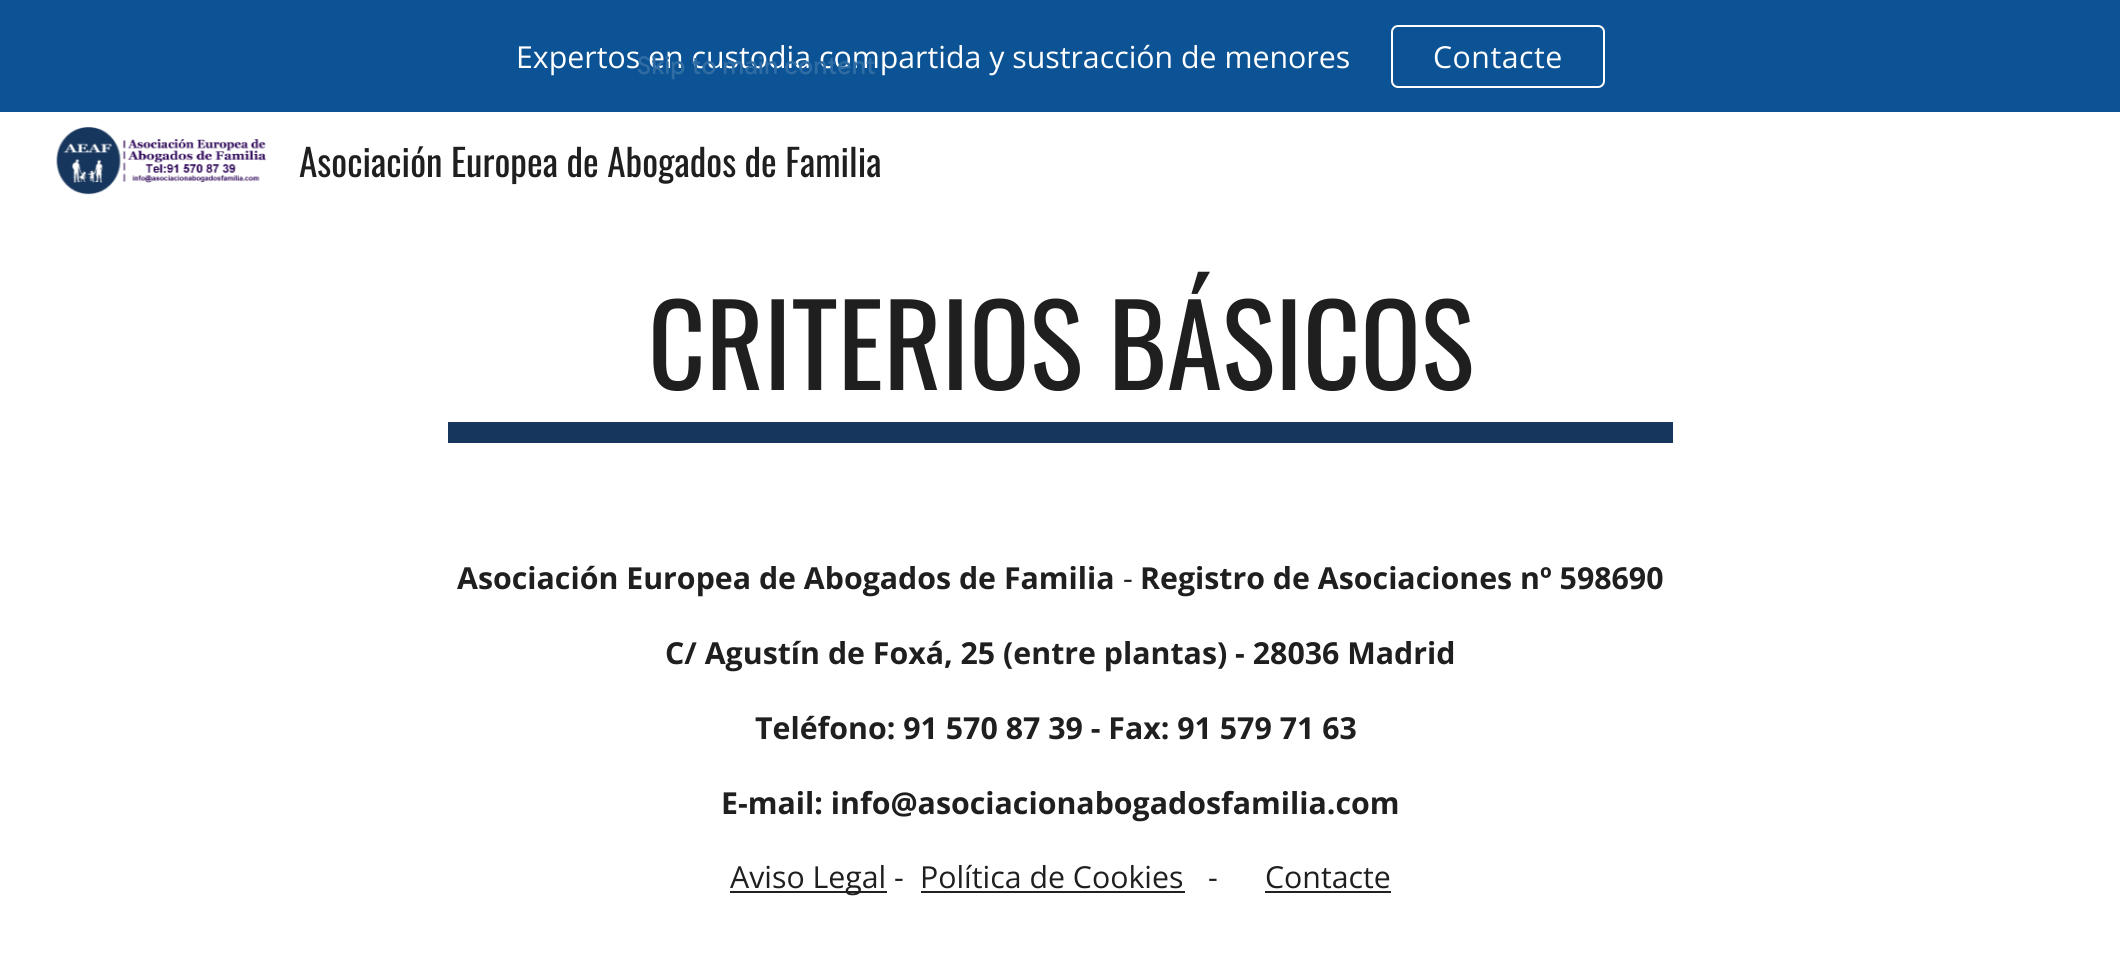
import math
import cairo

surface = cairo.ImageSurface(cairo.FORMAT_RGB24, 2120, 973)
cr = cairo.Context(surface)
options = cairo.FontOptions()
options.set_hint_metrics(cairo.HINT_METRICS_OFF)
options.set_hint_style(cairo.HINT_STYLE_NONE)
cr.set_font_options(options)
cr.set_miter_limit(4)


def rgb(code):
    cr.set_source_rgb(*(v / 255 for v in bytes.fromhex(code[-6:])))


def tracked(x, y, s, letter, word):
    cr.move_to(x, y)
    for ch in s:
        cr.show_text(ch)
        cr.rel_move_to(letter + word * (ch == ' '), 0)


def rrect(x, y, w, h, r):
    cr.new_sub_path()
    for i, (u, v) in enumerate([(x + w - r, y + h - r), (x + r, y + h - r), (x + r, y + r), (x + w - r, y + r)]):
        cr.arc(u, v, r, i * math.pi / 2, (i + 1) * math.pi / 2)
    cr.close_path()


def image(path, x, y, w, h):
    cr.save()
    cr.set_source_surface(cairo.ImageSurface.create_from_png(path), x, y)
    cr.rectangle(x, y, w, h)
    cr.fill()
    cr.restore()


rgb("#ffffff")
cr.paint()
rgb("#0b5394")
cr.rectangle(0, 0, 2120, 112)
cr.fill()
rrect(1392, 26, 212, 61, 6)
rgb("#ffffff")
cr.stroke()
image("img/1.png", 56, 127, 211, 68)
for x, y, w, h, color in [
    (448, 422, 1225, 21, "#17365d"),
    (730, 891, 157, 2, "#212121"),
    (921, 891, 264, 2, "#212121"),
    (1265, 891, 126, 2, "#212121"),
]:
    rgb(color)
    cr.rectangle(x, y, w, h)
    cr.fill()
cr.select_font_face("Open Sans")
cr.set_font_size(30.3)
rgb("#ffffff")
cr.move_to(516, 68)
cr.show_text("Expertos en custodia compartida y sustracción de menores")
tracked(1433, 68, "Contacte", 0.5, 0)
cr.select_font_face("Oswald")
cr.set_font_size(37.3)
rgb("#1f1f1f")
cr.move_to(299, 177)
cr.show_text("Asociación Europea de Abogados de Familia")
cr.set_font_size(112)
cr.move_to(648, 390)
cr.show_text("CRITERIOS BÁSICOS")
cr.select_font_face("Open Sans", cairo.FONT_SLANT_NORMAL, cairo.FONT_WEIGHT_BOLD)
cr.set_font_size(30.3)
cr.move_to(457, 589)
cr.show_text("Asociación Europea de Abogados de Familia")
cr.select_font_face("Open Sans")
cr.move_to(1123, 589)
cr.show_text("-")
cr.select_font_face("Open Sans", cairo.FONT_SLANT_NORMAL, cairo.FONT_WEIGHT_BOLD)
for x, y, s in [
    (1140, 589, "Registro de Asociaciones nº 598690"),
    (665, 664, "C/ Agustín de Foxá, 25 (entre plantas) - 28036 Madrid"),
    (755, 739, "Teléfono: 91 570 87 39 - Fax: 91 579 71 63"),
    (721, 814, "E-mail: info@asociacionabogadosfamilia.com"),
]:
    cr.move_to(x, y)
    cr.show_text(s)
cr.select_font_face("Open Sans")
for x, y, s in [
    (730, 888, "Aviso Legal -"),
    (920, 888, "Política de Cookies"),
    (1208, 888, "-"),
    (1265, 888, "Contacte"),
]:
    cr.move_to(x, y)
    cr.show_text(s)
cr.select_font_face("Google Sans Medium")
cr.set_font_size(24.5)
rgb("#2f6ca4")
tracked(637, 74, "Skip to main content", 0.25, 0)
surface.write_to_png("page.png")
